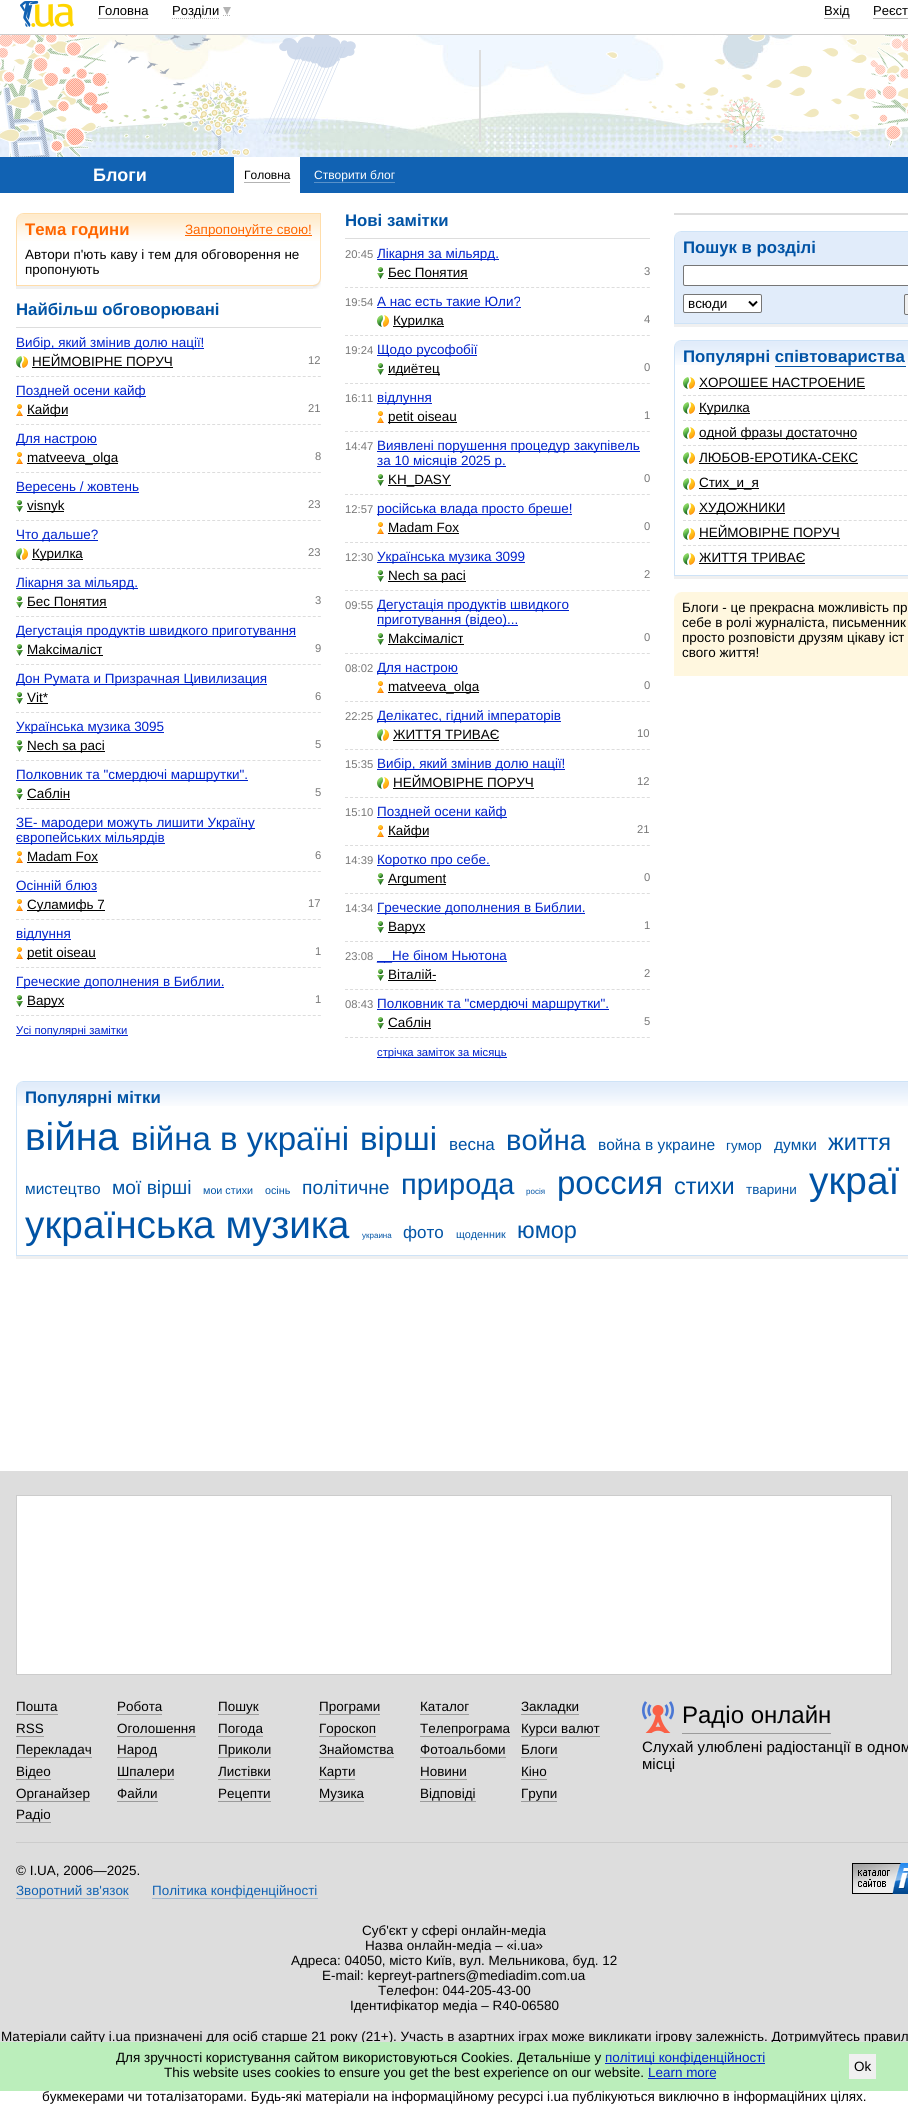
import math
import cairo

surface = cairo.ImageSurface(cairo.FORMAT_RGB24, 908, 2104)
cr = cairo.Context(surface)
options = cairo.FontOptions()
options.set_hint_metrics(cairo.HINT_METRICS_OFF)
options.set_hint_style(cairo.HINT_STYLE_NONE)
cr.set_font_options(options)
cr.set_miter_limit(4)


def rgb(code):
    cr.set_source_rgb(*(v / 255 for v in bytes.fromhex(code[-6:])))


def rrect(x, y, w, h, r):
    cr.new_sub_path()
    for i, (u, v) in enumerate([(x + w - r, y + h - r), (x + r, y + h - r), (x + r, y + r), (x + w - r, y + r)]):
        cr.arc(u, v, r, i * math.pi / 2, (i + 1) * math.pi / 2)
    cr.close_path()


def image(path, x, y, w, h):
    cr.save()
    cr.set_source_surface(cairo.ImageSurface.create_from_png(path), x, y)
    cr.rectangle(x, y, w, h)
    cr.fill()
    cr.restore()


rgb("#ffffff")
cr.paint()
rgb("#cccccc")
cr.rectangle(0, 34, 908, 1)
cr.fill()
image("img/1.png", 20, 1, 54, 26)
rgb("#b3b3b3")
cr.rectangle(98, 18, 50, 1)
cr.fill()
cr.new_path()
cr.move_to(172, 18.5)
cr.line_to(219, 18.5)
cr.move_to(223, 15.5)
cr.line_to(231, 15.5)
cr.set_line_width(1)
cr.set_dash([1, 1])
cr.stroke()
cr.new_path()
cr.move_to(223, 7)
cr.line_to(231, 7)
cr.line_to(227, 15)
cr.close_path()
cr.fill()
cr.rectangle(824, 18, 26, 1)
cr.fill()
cr.rectangle(873, 18, 35, 1)
cr.fill()
image("img/2.png", 0, 35, 908, 122)
for x, y, w, h, color in [
    (479, 50, 2, 92, "#dddddd"),
    (0, 157, 908, 36, "#1162b3"),
    (234, 157, 66, 36, "#ffffff"),
    (244, 182, 46, 1, "#b3b3b3"),
    (314, 182, 81, 1, "#5891ca"),
    (16, 286, 305, 3, "#f0f0f0"),
]:
    rgb(color)
    cr.rectangle(x, y, w, h)
    cr.fill()
image("img/4.png", 17, 214, 303, 27)
cr.rectangle(16.5, 213.5, 304, 72)
rgb("#ffddaa")
cr.set_dash([])
cr.stroke()
image("img/3.png", 16, 213, 8, 8)
rgb("#ff6600")
cr.rectangle(185, 235, 127, 1)
cr.fill()
image("img/5.png", 313, 278, 8, 11)
rgb("#dddddd")
cr.rectangle(16, 327, 305, 1)
cr.fill()
cr.new_path()
cr.move_to(16, 376.5)
cr.line_to(321, 376.5)
cr.set_dash([3, 2.03])
cr.stroke()
rgb("#0022cc")
cr.rectangle(16, 348, 188, 1)
cr.fill()
image("img/6.png", 16, 356, 12, 12)
rgb("#000000")
cr.rectangle(32, 367, 141, 1)
cr.fill()
cr.new_path()
cr.move_to(16, 424.5)
cr.line_to(321, 424.5)
rgb("#dddddd")
cr.stroke()
rgb("#0022cc")
cr.rectangle(16, 396, 130, 1)
cr.fill()
image("img/7.png", 16, 404, 7, 12)
rgb("#000000")
cr.rectangle(27, 415, 41, 1)
cr.fill()
cr.new_path()
cr.move_to(16, 472.5)
cr.line_to(321, 472.5)
rgb("#dddddd")
cr.stroke()
rgb("#0022cc")
cr.rectangle(16, 444, 81, 1)
cr.fill()
image("img/7.png", 16, 452, 7, 12)
rgb("#000000")
cr.rectangle(27, 463, 91, 1)
cr.fill()
cr.new_path()
cr.move_to(16, 520.5)
cr.line_to(321, 520.5)
rgb("#dddddd")
cr.stroke()
rgb("#0022cc")
cr.rectangle(16, 492, 123, 1)
cr.fill()
image("img/8.png", 16, 500, 7, 12)
rgb("#000000")
cr.rectangle(27, 511, 37, 1)
cr.fill()
cr.new_path()
cr.move_to(16, 568.5)
cr.line_to(321, 568.5)
rgb("#dddddd")
cr.stroke()
rgb("#0022cc")
cr.rectangle(16, 540, 82, 1)
cr.fill()
image("img/6.png", 16, 548, 12, 12)
rgb("#000000")
cr.rectangle(32, 559, 51, 1)
cr.fill()
cr.new_path()
cr.move_to(16, 616.5)
cr.line_to(321, 616.5)
rgb("#dddddd")
cr.stroke()
rgb("#0022cc")
cr.rectangle(16, 588, 122, 1)
cr.fill()
image("img/8.png", 16, 596, 7, 12)
rgb("#000000")
cr.rectangle(27, 607, 80, 1)
cr.fill()
cr.new_path()
cr.move_to(16, 664.5)
cr.line_to(321, 664.5)
rgb("#dddddd")
cr.stroke()
rgb("#0022cc")
cr.rectangle(16, 636, 280, 1)
cr.fill()
image("img/8.png", 16, 644, 7, 12)
rgb("#000000")
cr.rectangle(27, 655, 76, 1)
cr.fill()
cr.new_path()
cr.move_to(16, 712.5)
cr.line_to(321, 712.5)
rgb("#dddddd")
cr.stroke()
rgb("#0022cc")
cr.rectangle(16, 684, 251, 1)
cr.fill()
image("img/8.png", 16, 692, 7, 12)
rgb("#000000")
cr.rectangle(27, 703, 21, 1)
cr.fill()
cr.new_path()
cr.move_to(16, 760.5)
cr.line_to(321, 760.5)
rgb("#dddddd")
cr.stroke()
rgb("#0022cc")
cr.rectangle(16, 732, 148, 1)
cr.fill()
image("img/8.png", 16, 740, 7, 12)
rgb("#000000")
cr.rectangle(27, 751, 78, 1)
cr.fill()
cr.new_path()
cr.move_to(16, 808.5)
cr.line_to(321, 808.5)
rgb("#dddddd")
cr.stroke()
rgb("#0022cc")
cr.rectangle(16, 780, 232, 1)
cr.fill()
image("img/8.png", 16, 788, 7, 12)
rgb("#000000")
cr.rectangle(27, 799, 43, 1)
cr.fill()
cr.new_path()
cr.move_to(16, 871.5)
cr.line_to(321, 871.5)
rgb("#dddddd")
cr.stroke()
rgb("#0022cc")
cr.rectangle(16, 828, 239, 1)
cr.fill()
cr.rectangle(16, 843, 149, 1)
cr.fill()
image("img/7.png", 16, 851, 7, 12)
rgb("#000000")
cr.rectangle(27, 862, 71, 1)
cr.fill()
cr.new_path()
cr.move_to(16, 919.5)
cr.line_to(321, 919.5)
rgb("#dddddd")
cr.stroke()
rgb("#0022cc")
cr.rectangle(16, 891, 81, 1)
cr.fill()
image("img/7.png", 16, 899, 7, 12)
rgb("#000000")
cr.rectangle(27, 910, 78, 1)
cr.fill()
cr.new_path()
cr.move_to(16, 967.5)
cr.line_to(321, 967.5)
rgb("#dddddd")
cr.stroke()
rgb("#0022cc")
cr.rectangle(16, 939, 55, 1)
cr.fill()
image("img/7.png", 16, 947, 7, 12)
rgb("#000000")
cr.rectangle(27, 958, 69, 1)
cr.fill()
cr.new_path()
cr.move_to(16, 1015.5)
cr.line_to(321, 1015.5)
rgb("#dddddd")
cr.stroke()
rgb("#0022cc")
cr.rectangle(16, 987, 208, 1)
cr.fill()
image("img/8.png", 16, 995, 7, 12)
for x, y, w, h, color in [
    (27, 1006, 37, 1, "#000000"),
    (16, 1035, 112, 1, "#0022cc"),
    (345, 238, 305, 1, "#dddddd"),
]:
    rgb(color)
    cr.rectangle(x, y, w, h)
    cr.fill()
cr.new_path()
cr.move_to(345, 287.5)
cr.line_to(650, 287.5)
cr.stroke()
rgb("#0022cc")
cr.rectangle(377, 259, 122, 1)
cr.fill()
image("img/8.png", 377, 267, 7, 12)
rgb("#000000")
cr.rectangle(388, 278, 80, 1)
cr.fill()
cr.new_path()
cr.move_to(345, 335.5)
cr.line_to(650, 335.5)
rgb("#dddddd")
cr.stroke()
rgb("#0022cc")
cr.rectangle(377, 307, 144, 1)
cr.fill()
image("img/6.png", 377, 315, 12, 12)
rgb("#000000")
cr.rectangle(393, 326, 51, 1)
cr.fill()
cr.new_path()
cr.move_to(345, 383.5)
cr.line_to(650, 383.5)
rgb("#dddddd")
cr.stroke()
rgb("#0022cc")
cr.rectangle(377, 355, 100, 1)
cr.fill()
image("img/8.png", 377, 363, 7, 12)
rgb("#000000")
cr.rectangle(388, 374, 52, 1)
cr.fill()
cr.new_path()
cr.move_to(345, 431.5)
cr.line_to(650, 431.5)
rgb("#dddddd")
cr.stroke()
rgb("#0022cc")
cr.rectangle(377, 403, 55, 1)
cr.fill()
image("img/7.png", 377, 411, 7, 12)
rgb("#000000")
cr.rectangle(388, 422, 69, 1)
cr.fill()
cr.new_path()
cr.move_to(345, 494.5)
cr.line_to(650, 494.5)
rgb("#dddddd")
cr.stroke()
rgb("#0022cc")
cr.rectangle(377, 451, 263, 1)
cr.fill()
cr.rectangle(377, 466, 129, 1)
cr.fill()
image("img/8.png", 377, 474, 7, 12)
rgb("#000000")
cr.rectangle(388, 485, 63, 1)
cr.fill()
cr.new_path()
cr.move_to(345, 542.5)
cr.line_to(650, 542.5)
rgb("#dddddd")
cr.stroke()
rgb("#0022cc")
cr.rectangle(377, 514, 195, 1)
cr.fill()
image("img/7.png", 377, 522, 7, 12)
rgb("#000000")
cr.rectangle(388, 533, 71, 1)
cr.fill()
cr.new_path()
cr.move_to(345, 590.5)
cr.line_to(650, 590.5)
rgb("#dddddd")
cr.stroke()
rgb("#0022cc")
cr.rectangle(377, 562, 148, 1)
cr.fill()
image("img/8.png", 377, 570, 7, 12)
rgb("#000000")
cr.rectangle(388, 581, 78, 1)
cr.fill()
cr.new_path()
cr.move_to(345, 653.5)
cr.line_to(650, 653.5)
rgb("#dddddd")
cr.stroke()
rgb("#0022cc")
cr.rectangle(377, 610, 192, 1)
cr.fill()
cr.rectangle(377, 625, 141, 1)
cr.fill()
image("img/8.png", 377, 633, 7, 12)
rgb("#000000")
cr.rectangle(388, 644, 76, 1)
cr.fill()
cr.new_path()
cr.move_to(345, 701.5)
cr.line_to(650, 701.5)
rgb("#dddddd")
cr.stroke()
rgb("#0022cc")
cr.rectangle(377, 673, 81, 1)
cr.fill()
image("img/7.png", 377, 681, 7, 12)
rgb("#000000")
cr.rectangle(388, 692, 91, 1)
cr.fill()
cr.new_path()
cr.move_to(345, 749.5)
cr.line_to(650, 749.5)
rgb("#dddddd")
cr.stroke()
rgb("#0022cc")
cr.rectangle(377, 721, 184, 1)
cr.fill()
image("img/6.png", 377, 729, 12, 12)
rgb("#000000")
cr.rectangle(393, 740, 106, 1)
cr.fill()
cr.new_path()
cr.move_to(345, 797.5)
cr.line_to(650, 797.5)
rgb("#dddddd")
cr.stroke()
rgb("#0022cc")
cr.rectangle(377, 769, 188, 1)
cr.fill()
image("img/6.png", 377, 777, 12, 12)
rgb("#000000")
cr.rectangle(393, 788, 141, 1)
cr.fill()
cr.new_path()
cr.move_to(345, 845.5)
cr.line_to(650, 845.5)
rgb("#dddddd")
cr.stroke()
rgb("#0022cc")
cr.rectangle(377, 817, 130, 1)
cr.fill()
image("img/7.png", 377, 825, 7, 12)
rgb("#000000")
cr.rectangle(388, 836, 41, 1)
cr.fill()
cr.new_path()
cr.move_to(345, 893.5)
cr.line_to(650, 893.5)
rgb("#dddddd")
cr.stroke()
rgb("#0022cc")
cr.rectangle(377, 865, 113, 1)
cr.fill()
image("img/8.png", 377, 873, 7, 12)
rgb("#000000")
cr.rectangle(388, 884, 58, 1)
cr.fill()
cr.new_path()
cr.move_to(345, 941.5)
cr.line_to(650, 941.5)
rgb("#dddddd")
cr.stroke()
rgb("#0022cc")
cr.rectangle(377, 913, 208, 1)
cr.fill()
image("img/8.png", 377, 921, 7, 12)
rgb("#000000")
cr.rectangle(388, 932, 37, 1)
cr.fill()
cr.new_path()
cr.move_to(345, 989.5)
cr.line_to(650, 989.5)
rgb("#dddddd")
cr.stroke()
rgb("#0022cc")
cr.rectangle(377, 961, 130, 1)
cr.fill()
image("img/8.png", 377, 969, 7, 12)
rgb("#000000")
cr.rectangle(388, 980, 48, 1)
cr.fill()
cr.new_path()
cr.move_to(345, 1037.5)
cr.line_to(650, 1037.5)
rgb("#dddddd")
cr.stroke()
rgb("#0022cc")
cr.rectangle(377, 1009, 232, 1)
cr.fill()
image("img/8.png", 377, 1017, 7, 12)
for x, y, w, h, color in [
    (388, 1028, 43, 1, "#000000"),
    (377, 1057, 130, 1, "#0022cc"),
    (674, 213, 234, 2, "#dddddd"),
    (674, 324, 234, 3, "#f0f0f0"),
]:
    rgb(color)
    cr.rectangle(x, y, w, h)
    cr.fill()
rgb("#e1ecfa")
cr.rectangle(674.5, 231.5, 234, 92)
cr.fill_preserve()
rgb("#cee3f7")
cr.set_dash([])
cr.stroke()
image("img/9.png", 674, 231, 7, 7)
rgb("#ffffff")
rrect(683.5, 265.5, 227, 20, 1.5)
cr.fill_preserve()
rgb("#767676")
cr.stroke()
rgb("#ffffff")
rrect(683.5, 294.5, 78, 18, 1.5)
cr.fill_preserve()
rgb("#767676")
cr.stroke()
cr.new_path()
cr.move_to(749, 301.5)
cr.line_to(753, 305.5)
cr.line_to(757, 301.5)
rgb("#000000")
cr.set_line_width(2)
cr.stroke()
rgb("#efefef")
rrect(904.5, 294.5, 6, 20, 1.5)
cr.fill_preserve()
rgb("#767676")
cr.set_line_width(1)
cr.stroke()
rgb("#f0f0f0")
cr.rectangle(674, 576, 234, 3)
cr.fill()
image("img/11.png", 675, 341, 233, 24)
cr.rectangle(674.5, 340.5, 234, 235)
rgb("#cee3f7")
cr.stroke()
image("img/10.png", 674, 340, 7, 7)
rgb("#0053a5")
cr.rectangle(775, 366, 131, 1)
cr.fill()
cr.new_path()
cr.move_to(683, 395.5)
cr.line_to(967, 395.5)
rgb("#dddddd")
cr.set_dash([3, 2.02])
cr.stroke()
image("img/6.png", 683, 377, 12, 12)
rgb("#000000")
cr.rectangle(699, 388, 166, 1)
cr.fill()
cr.new_path()
cr.move_to(683, 420.5)
cr.line_to(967, 420.5)
rgb("#dddddd")
cr.stroke()
image("img/6.png", 683, 402, 12, 12)
rgb("#000000")
cr.rectangle(699, 413, 51, 1)
cr.fill()
cr.new_path()
cr.move_to(683, 445.5)
cr.line_to(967, 445.5)
rgb("#dddddd")
cr.stroke()
image("img/6.png", 683, 427, 12, 12)
rgb("#000000")
cr.rectangle(699, 438, 158, 1)
cr.fill()
cr.new_path()
cr.move_to(683, 470.5)
cr.line_to(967, 470.5)
rgb("#dddddd")
cr.stroke()
image("img/6.png", 683, 452, 12, 12)
rgb("#000000")
cr.rectangle(699, 463, 159, 1)
cr.fill()
cr.new_path()
cr.move_to(683, 495.5)
cr.line_to(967, 495.5)
rgb("#dddddd")
cr.stroke()
image("img/6.png", 683, 478, 12, 12)
rgb("#000000")
cr.rectangle(699, 488, 60, 1)
cr.fill()
cr.new_path()
cr.move_to(683, 520.5)
cr.line_to(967, 520.5)
rgb("#dddddd")
cr.stroke()
image("img/6.png", 683, 503, 12, 12)
rgb("#000000")
cr.rectangle(699, 513, 86, 1)
cr.fill()
cr.new_path()
cr.move_to(683, 545.5)
cr.line_to(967, 545.5)
rgb("#dddddd")
cr.stroke()
image("img/6.png", 683, 528, 12, 12)
rgb("#000000")
cr.rectangle(699, 538, 141, 1)
cr.fill()
image("img/6.png", 683, 553, 12, 12)
cr.rectangle(699, 563, 106, 1)
cr.fill()
rgb("#fff7df")
cr.rectangle(674, 592, 234, 84)
cr.fill()
image("img/12.png", 674, 592, 7, 7)
rgb("#f0f0f0")
cr.rectangle(16, 1256, 892, 3)
cr.fill()
image("img/13.png", 17, 1082, 891, 24)
cr.rectangle(16.5, 1081.5, 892, 174)
rgb("#cee3f7")
cr.set_dash([])
cr.stroke()
image("img/10.png", 16, 1081, 7, 7)
rgb("#dddddd")
cr.rectangle(0, 1471, 908, 571)
cr.fill()
rgb("#ffffff")
cr.rectangle(16.5, 1495.5, 875, 179)
cr.fill_preserve()
rgb("#cccccc")
cr.stroke()
for x, y, w, h, color in [
    (16, 1714, 42, 1, "#9b9b9b"),
    (117, 1714, 45, 1, "#9b9b9b"),
    (218, 1714, 41, 1, "#9b9b9b"),
    (319, 1714, 61, 1, "#9b9b9b"),
    (420, 1714, 49, 1, "#9b9b9b"),
    (521, 1714, 58, 1, "#9b9b9b"),
    (16, 1736, 28, 1, "#9b9b9b"),
    (117, 1736, 79, 1, "#9b9b9b"),
    (218, 1736, 45, 1, "#9b9b9b"),
    (319, 1736, 57, 1, "#9b9b9b"),
    (420, 1736, 90, 1, "#9b9b9b"),
    (521, 1736, 79, 1, "#9b9b9b"),
    (16, 1757, 76, 1, "#9b9b9b"),
    (117, 1757, 40, 1, "#9b9b9b"),
    (218, 1757, 53, 1, "#9b9b9b"),
    (319, 1757, 75, 1, "#9b9b9b"),
    (420, 1757, 86, 1, "#9b9b9b"),
    (521, 1757, 37, 1, "#9b9b9b"),
    (16, 1779, 35, 1, "#9b9b9b"),
    (117, 1779, 57, 1, "#9b9b9b"),
    (218, 1779, 53, 1, "#9b9b9b"),
    (319, 1779, 36, 1, "#9b9b9b"),
    (420, 1779, 47, 1, "#9b9b9b"),
    (521, 1779, 26, 1, "#9b9b9b"),
    (16, 1801, 74, 1, "#9b9b9b"),
    (117, 1801, 41, 1, "#9b9b9b"),
    (218, 1801, 53, 1, "#9b9b9b"),
    (319, 1801, 45, 1, "#9b9b9b"),
    (420, 1801, 56, 1, "#9b9b9b"),
    (521, 1801, 36, 1, "#9b9b9b"),
    (16, 1822, 35, 1, "#9b9b9b"),
    (682, 1733, 149, 1, "#9b9b9b"),
]:
    rgb(color)
    cr.rectangle(x, y, w, h)
    cr.fill()
image("img/14.png", 642, 1701, 32, 32)
rgb("#cccccc")
cr.rectangle(16, 1842, 892, 1)
cr.fill()
image("img/15.png", 852, 1863, 56, 31)
rgb("#a0b8d0")
cr.rectangle(16, 1898, 113, 1)
cr.fill()
cr.rectangle(152, 1898, 166, 1)
cr.fill()
cr.select_font_face("Liberation Sans")
cr.set_font_size(13)
rgb("#000000")
for x, y, s in [
    (98, 15, "Головна"),
    (172, 15, "Розділи"),
    (824, 15, "Вхід"),
    (873, 15, "Реєст"),
]:
    cr.move_to(x, y)
    cr.show_text(s)
cr.select_font_face("Liberation Sans", cairo.FONT_SLANT_NORMAL, cairo.FONT_WEIGHT_BOLD)
cr.set_font_size(18)
rgb("#ffffff")
cr.move_to(93, 181)
cr.show_text("Блоги")
cr.select_font_face("Liberation Sans")
cr.set_font_size(12)
rgb("#000000")
cr.move_to(244, 179)
cr.show_text("Головна")
rgb("#ffffff")
cr.move_to(314, 179)
cr.show_text("Створити блог")
cr.select_font_face("Liberation Sans", cairo.FONT_SLANT_NORMAL, cairo.FONT_WEIGHT_BOLD)
cr.set_font_size(16.75)
rgb("#ff6600")
cr.move_to(25, 235)
cr.show_text("Тема години")
cr.select_font_face("Liberation Sans")
cr.set_font_size(13.45)
cr.move_to(185, 234)
cr.show_text("Запропонуйте свою!")
rgb("#000000")
cr.move_to(25, 259)
cr.show_text("Автори п'ють каву і тем для обговорення не")
cr.move_to(25, 274)
cr.show_text("пропонують")
cr.select_font_face("Liberation Sans", cairo.FONT_SLANT_NORMAL, cairo.FONT_WEIGHT_BOLD)
cr.set_font_size(16.75)
rgb("#0053a5")
cr.move_to(16, 315)
cr.show_text("Найбільш обговорювані")
cr.select_font_face("Liberation Sans")
cr.set_font_size(13.45)
rgb("#0022cc")
cr.move_to(16, 347)
cr.show_text("Вибір, який змінив долю нації!")
rgb("#000000")
cr.move_to(32, 366)
cr.show_text("НЕЙМОВІРНЕ ПОРУЧ")
cr.set_font_size(11.25)
rgb("#777777")
cr.move_to(308, 364)
cr.show_text("12")
cr.set_font_size(13.45)
rgb("#0022cc")
cr.move_to(16, 395)
cr.show_text("Поздней осени кайф")
rgb("#000000")
cr.move_to(27, 414)
cr.show_text("Кайфи")
cr.set_font_size(11.25)
rgb("#777777")
cr.move_to(308, 412)
cr.show_text("21")
cr.set_font_size(13.45)
rgb("#0022cc")
cr.move_to(16, 443)
cr.show_text("Для настрою")
rgb("#000000")
cr.move_to(27, 462)
cr.show_text("matveeva_olga")
cr.set_font_size(11.25)
rgb("#777777")
cr.move_to(315, 460)
cr.show_text("8")
cr.set_font_size(13.45)
rgb("#0022cc")
cr.move_to(16, 491)
cr.show_text("Вересень / жовтень")
rgb("#000000")
cr.move_to(27, 510)
cr.show_text("visnyk")
cr.set_font_size(11.25)
rgb("#777777")
cr.move_to(308, 508)
cr.show_text("23")
cr.set_font_size(13.45)
rgb("#0022cc")
cr.move_to(16, 539)
cr.show_text("Что дальше?")
rgb("#000000")
cr.move_to(32, 558)
cr.show_text("Курилка")
cr.set_font_size(11.25)
rgb("#777777")
cr.move_to(308, 556)
cr.show_text("23")
cr.set_font_size(13.45)
rgb("#0022cc")
cr.move_to(16, 587)
cr.show_text("Лікарня за мільярд.")
rgb("#000000")
cr.move_to(27, 606)
cr.show_text("Бес Понятия")
cr.set_font_size(11.25)
rgb("#777777")
cr.move_to(315, 604)
cr.show_text("3")
cr.set_font_size(13.45)
rgb("#0022cc")
cr.move_to(16, 635)
cr.show_text("Дегустація продуктів швидкого приготування")
rgb("#000000")
cr.move_to(27, 654)
cr.show_text("Makcімаліст")
cr.set_font_size(11.25)
rgb("#777777")
cr.move_to(315, 652)
cr.show_text("9")
cr.set_font_size(13.45)
rgb("#0022cc")
cr.move_to(16, 683)
cr.show_text("Дон Румата и Призрачная Цивилизация")
rgb("#000000")
cr.move_to(27, 702)
cr.show_text("Vit*")
cr.set_font_size(11.25)
rgb("#777777")
cr.move_to(315, 700)
cr.show_text("6")
cr.set_font_size(13.45)
rgb("#0022cc")
cr.move_to(16, 731)
cr.show_text("Українська музика 3095")
rgb("#000000")
cr.move_to(27, 750)
cr.show_text("Nech sa paci")
cr.set_font_size(11.25)
rgb("#777777")
cr.move_to(315, 748)
cr.show_text("5")
cr.set_font_size(13.45)
rgb("#0022cc")
cr.move_to(16, 779)
cr.show_text("Полковник та \"смердючі маршрутки\".")
rgb("#000000")
cr.move_to(27, 798)
cr.show_text("Саблін")
cr.set_font_size(11.25)
rgb("#777777")
cr.move_to(315, 796)
cr.show_text("5")
cr.set_font_size(13.45)
rgb("#0022cc")
cr.move_to(16, 827)
cr.show_text("ЗЕ- мародери можуть лишити Україну")
cr.move_to(16, 842)
cr.show_text("європейських мільярдів")
rgb("#000000")
cr.move_to(27, 861)
cr.show_text("Madam Fox")
cr.set_font_size(11.25)
rgb("#777777")
cr.move_to(315, 859)
cr.show_text("6")
cr.set_font_size(13.45)
rgb("#0022cc")
cr.move_to(16, 890)
cr.show_text("Осінній блюз")
rgb("#000000")
cr.move_to(27, 909)
cr.show_text("Суламифь 7")
cr.set_font_size(11.25)
rgb("#777777")
cr.move_to(308, 907)
cr.show_text("17")
cr.set_font_size(13.45)
rgb("#0022cc")
cr.move_to(16, 938)
cr.show_text("відлуння")
rgb("#000000")
cr.move_to(27, 957)
cr.show_text("petit oiseau")
cr.set_font_size(11.25)
rgb("#777777")
cr.move_to(315, 955)
cr.show_text("1")
cr.set_font_size(13.45)
rgb("#0022cc")
cr.move_to(16, 986)
cr.show_text("Греческие дополнения в Библии.")
rgb("#000000")
cr.move_to(27, 1005)
cr.show_text("Варух")
cr.set_font_size(11.25)
rgb("#777777")
cr.move_to(315, 1003)
cr.show_text("1")
rgb("#0022cc")
cr.move_to(16, 1034)
cr.show_text("Усі популярні замітки")
cr.select_font_face("Liberation Sans", cairo.FONT_SLANT_NORMAL, cairo.FONT_WEIGHT_BOLD)
cr.set_font_size(16.75)
rgb("#0053a5")
cr.move_to(345, 226)
cr.show_text("Нові замітки")
cr.select_font_face("Liberation Sans")
cr.set_font_size(11.25)
rgb("#777777")
cr.move_to(345, 258)
cr.show_text("20:45")
cr.set_font_size(13.45)
rgb("#0022cc")
cr.move_to(377, 258)
cr.show_text("Лікарня за мільярд.")
rgb("#000000")
cr.move_to(388, 277)
cr.show_text("Бес Понятия")
cr.set_font_size(11.25)
rgb("#777777")
cr.move_to(644, 275)
cr.show_text("3")
cr.move_to(345, 306)
cr.show_text("19:54")
cr.set_font_size(13.45)
rgb("#0022cc")
cr.move_to(377, 306)
cr.show_text("А нас есть такие Юли?")
rgb("#000000")
cr.move_to(393, 325)
cr.show_text("Курилка")
cr.set_font_size(11.25)
rgb("#777777")
cr.move_to(644, 323)
cr.show_text("4")
cr.move_to(345, 354)
cr.show_text("19:24")
cr.set_font_size(13.45)
rgb("#0022cc")
cr.move_to(377, 354)
cr.show_text("Щодо русофобії")
rgb("#000000")
cr.move_to(388, 373)
cr.show_text("идиётец")
cr.set_font_size(11.25)
rgb("#777777")
cr.move_to(644, 371)
cr.show_text("0")
cr.move_to(345, 402)
cr.show_text("16:11")
cr.set_font_size(13.45)
rgb("#0022cc")
cr.move_to(377, 402)
cr.show_text("відлуння")
rgb("#000000")
cr.move_to(388, 421)
cr.show_text("petit oiseau")
cr.set_font_size(11.25)
rgb("#777777")
cr.move_to(644, 419)
cr.show_text("1")
cr.move_to(345, 450)
cr.show_text("14:47")
cr.set_font_size(13.45)
rgb("#0022cc")
cr.move_to(377, 450)
cr.show_text("Виявлені порушення процедур закупівель")
cr.move_to(377, 465)
cr.show_text("за 10 місяців 2025 р.")
rgb("#000000")
cr.move_to(388, 484)
cr.show_text("KH_DASY")
cr.set_font_size(11.25)
rgb("#777777")
cr.move_to(644, 482)
cr.show_text("0")
cr.move_to(345, 513)
cr.show_text("12:57")
cr.set_font_size(13.45)
rgb("#0022cc")
cr.move_to(377, 513)
cr.show_text("російська влада просто бреше!")
rgb("#000000")
cr.move_to(388, 532)
cr.show_text("Madam Fox")
cr.set_font_size(11.25)
rgb("#777777")
cr.move_to(644, 530)
cr.show_text("0")
cr.move_to(345, 561)
cr.show_text("12:30")
cr.set_font_size(13.45)
rgb("#0022cc")
cr.move_to(377, 561)
cr.show_text("Українська музика 3099")
rgb("#000000")
cr.move_to(388, 580)
cr.show_text("Nech sa paci")
cr.set_font_size(11.25)
rgb("#777777")
cr.move_to(644, 578)
cr.show_text("2")
cr.move_to(345, 609)
cr.show_text("09:55")
cr.set_font_size(13.45)
rgb("#0022cc")
cr.move_to(377, 609)
cr.show_text("Дегустація продуктів швидкого")
cr.move_to(377, 624)
cr.show_text("приготування (відео)...")
rgb("#000000")
cr.move_to(388, 643)
cr.show_text("Makcімаліст")
cr.set_font_size(11.25)
rgb("#777777")
cr.move_to(644, 641)
cr.show_text("0")
cr.move_to(345, 672)
cr.show_text("08:02")
cr.set_font_size(13.45)
rgb("#0022cc")
cr.move_to(377, 672)
cr.show_text("Для настрою")
rgb("#000000")
cr.move_to(388, 691)
cr.show_text("matveeva_olga")
cr.set_font_size(11.25)
rgb("#777777")
cr.move_to(644, 689)
cr.show_text("0")
cr.move_to(345, 720)
cr.show_text("22:25")
cr.set_font_size(13.45)
rgb("#0022cc")
cr.move_to(377, 720)
cr.show_text("Делікатес, гідний імператорів")
rgb("#000000")
cr.move_to(393, 739)
cr.show_text("ЖИТТЯ ТРИВАЄ")
cr.set_font_size(11.25)
rgb("#777777")
cr.move_to(637, 737)
cr.show_text("10")
cr.move_to(345, 768)
cr.show_text("15:35")
cr.set_font_size(13.45)
rgb("#0022cc")
cr.move_to(377, 768)
cr.show_text("Вибір, який змінив долю нації!")
rgb("#000000")
cr.move_to(393, 787)
cr.show_text("НЕЙМОВІРНЕ ПОРУЧ")
cr.set_font_size(11.25)
rgb("#777777")
cr.move_to(637, 785)
cr.show_text("12")
cr.move_to(345, 816)
cr.show_text("15:10")
cr.set_font_size(13.45)
rgb("#0022cc")
cr.move_to(377, 816)
cr.show_text("Поздней осени кайф")
rgb("#000000")
cr.move_to(388, 835)
cr.show_text("Кайфи")
cr.set_font_size(11.25)
rgb("#777777")
cr.move_to(637, 833)
cr.show_text("21")
cr.move_to(345, 864)
cr.show_text("14:39")
cr.set_font_size(13.45)
rgb("#0022cc")
cr.move_to(377, 864)
cr.show_text("Коротко про себе.")
rgb("#000000")
cr.move_to(388, 883)
cr.show_text("Argument")
cr.set_font_size(11.25)
rgb("#777777")
cr.move_to(644, 881)
cr.show_text("0")
cr.move_to(345, 912)
cr.show_text("14:34")
cr.set_font_size(13.45)
rgb("#0022cc")
cr.move_to(377, 912)
cr.show_text("Греческие дополнения в Библии.")
rgb("#000000")
cr.move_to(388, 931)
cr.show_text("Варух")
cr.set_font_size(11.25)
rgb("#777777")
cr.move_to(644, 929)
cr.show_text("1")
cr.move_to(345, 960)
cr.show_text("23:08")
cr.set_font_size(13.45)
rgb("#0022cc")
cr.move_to(377, 960)
cr.show_text("__Не біном Ньютона")
rgb("#000000")
cr.move_to(388, 979)
cr.show_text("Віталій-")
cr.set_font_size(11.25)
rgb("#777777")
cr.move_to(644, 977)
cr.show_text("2")
cr.move_to(345, 1008)
cr.show_text("08:43")
cr.set_font_size(13.45)
rgb("#0022cc")
cr.move_to(377, 1008)
cr.show_text("Полковник та \"смердючі маршрутки\".")
rgb("#000000")
cr.move_to(388, 1027)
cr.show_text("Саблін")
cr.set_font_size(11.25)
rgb("#777777")
cr.move_to(644, 1025)
cr.show_text("5")
rgb("#0022cc")
cr.move_to(377, 1056)
cr.show_text("стрічка заміток за місяць")
cr.select_font_face("Liberation Sans", cairo.FONT_SLANT_NORMAL, cairo.FONT_WEIGHT_BOLD)
cr.set_font_size(16.75)
rgb("#0053a5")
cr.move_to(683, 253)
cr.show_text("Пошук в розділі")
cr.select_font_face("Liberation Sans")
cr.set_font_size(13.45)
rgb("#000000")
cr.move_to(688, 308)
cr.show_text("всюди")
cr.select_font_face("Liberation Sans", cairo.FONT_SLANT_NORMAL, cairo.FONT_WEIGHT_BOLD)
cr.set_font_size(16.75)
rgb("#0053a5")
cr.move_to(683, 362)
cr.show_text("Популярні співтовариства")
cr.select_font_face("Liberation Sans")
cr.set_font_size(13.45)
rgb("#000000")
for x, y, s in [
    (699, 387, "ХОРОШЕЕ НАСТРОЕНИЕ"),
    (699, 412, "Курилка"),
    (699, 437, "одной фразы достаточно"),
    (699, 462, "ЛЮБОВ-ЕРОТИКА-СЕКС"),
    (699, 487, "Стих_и_я"),
    (699, 512, "ХУДОЖНИКИ"),
    (699, 537, "НЕЙМОВІРНЕ ПОРУЧ"),
    (699, 562, "ЖИТТЯ ТРИВАЄ"),
    (682, 612, "Блоги - це прекрасна можливість пр"),
    (682, 627, "себе в ролі журналіста, письменник"),
    (682, 642, "просто розповісти друзям цікаву іст"),
    (682, 657, "свого життя!"),
]:
    cr.move_to(x, y)
    cr.show_text(s)
cr.select_font_face("Liberation Sans", cairo.FONT_SLANT_NORMAL, cairo.FONT_WEIGHT_BOLD)
cr.set_font_size(16.75)
rgb("#0053a5")
cr.move_to(25, 1103)
cr.show_text("Популярні мітки")
cr.select_font_face("Liberation Sans")
cr.set_font_size(38.75)
cr.move_to(25, 1150)
cr.show_text("війна")
cr.set_font_size(33)
cr.move_to(131, 1150)
cr.show_text("війна в україні")
cr.move_to(360, 1150)
cr.show_text("вірші")
cr.set_font_size(17)
cr.move_to(449, 1150)
cr.show_text("весна")
cr.set_font_size(29)
cr.move_to(506, 1150)
cr.show_text("война")
cr.set_font_size(15.5)
cr.move_to(598, 1150)
cr.show_text("война в украине")
cr.set_font_size(13.45)
cr.move_to(726, 1150)
cr.show_text("гумор")
cr.set_font_size(15.5)
cr.move_to(774, 1150)
cr.show_text("думки")
cr.set_font_size(23.5)
cr.move_to(828, 1150)
cr.show_text("життя")
cr.set_font_size(15.5)
cr.move_to(25, 1194)
cr.show_text("мистецтво")
cr.set_font_size(19.25)
cr.move_to(112, 1194)
cr.show_text("мої вірші")
cr.set_font_size(10.75)
cr.move_to(203, 1194)
cr.show_text("мои стихи")
cr.move_to(265, 1194)
cr.show_text("осінь")
cr.set_font_size(19.25)
cr.move_to(302, 1194)
cr.show_text("політичне")
cr.set_font_size(29)
cr.move_to(401, 1194)
cr.show_text("природа")
cr.set_font_size(8)
cr.move_to(526, 1194)
cr.show_text("росія")
cr.set_font_size(33)
cr.move_to(557, 1194)
cr.show_text("россия")
cr.set_font_size(23.5)
cr.move_to(674, 1194)
cr.show_text("стихи")
cr.set_font_size(13.45)
cr.move_to(746, 1194)
cr.show_text("тварини")
cr.set_font_size(38.75)
cr.move_to(809, 1194)
cr.show_text("украї")
cr.move_to(25, 1238)
cr.show_text("українська музика")
cr.set_font_size(8)
cr.move_to(362, 1238)
cr.show_text("украина")
cr.set_font_size(17)
cr.move_to(403, 1238)
cr.show_text("фото")
cr.set_font_size(10.75)
cr.move_to(456, 1238)
cr.show_text("щоденник")
cr.set_font_size(23.5)
cr.move_to(517, 1238)
cr.show_text("юмор")
cr.set_font_size(13.45)
rgb("#000000")
for x, y, s in [
    (16, 1711, "Пошта"),
    (117, 1711, "Робота"),
    (218, 1711, "Пошук"),
    (319, 1711, "Програми"),
    (420, 1711, "Каталог"),
    (521, 1711, "Закладки"),
    (16, 1733, "RSS"),
    (117, 1733, "Оголошення"),
    (218, 1733, "Погода"),
    (319, 1733, "Гороскоп"),
    (420, 1733, "Телепрограма"),
    (521, 1733, "Курси валют"),
    (16, 1754, "Перекладач"),
    (117, 1754, "Народ"),
    (218, 1754, "Приколи"),
    (319, 1754, "Знайомства"),
    (420, 1754, "Фотоальбоми"),
    (521, 1754, "Блоги"),
    (16, 1776, "Відео"),
    (117, 1776, "Шпалери"),
    (218, 1776, "Листівки"),
    (319, 1776, "Карти"),
    (420, 1776, "Новини"),
    (521, 1776, "Кіно"),
    (16, 1798, "Органайзер"),
    (117, 1798, "Файли"),
    (218, 1798, "Рецепти"),
    (319, 1798, "Музика"),
    (420, 1798, "Відповіді"),
    (521, 1798, "Групи"),
    (16, 1819, "Радіо"),
]:
    cr.move_to(x, y)
    cr.show_text(s)
cr.set_font_size(24)
cr.move_to(682, 1723)
cr.show_text("Радіо онлайн")
cr.set_font_size(15)
cr.move_to(642, 1752)
cr.show_text("Слухай улюблені радіостанції в одном")
cr.move_to(642, 1769)
cr.show_text("місці")
cr.set_font_size(13.45)
cr.move_to(16, 1875)
cr.show_text("© I.UA, 2006—2025.")
rgb("#1162b3")
cr.move_to(16, 1895)
cr.show_text("Зворотний зв'язок")
cr.move_to(152, 1895)
cr.show_text("Політика конфіденційності")
rgb("#000000")
for x, y, s in [
    (362, 1935, "Суб'єкт у сфері онлайн-медіа"),
    (365, 1950, "Назва онлайн-медіа – «i.ua»"),
    (291, 1965, "Адреса: 04050, місто Київ, вул. Мельникова, буд. 12"),
    (322, 1980, "E-mail: kepreyt-partners@mediadim.com.ua"),
    (378, 1995, "Телефон: 044-205-43-00"),
    (350, 2010, "Ідентифікатор медіа – R40-06580"),
    (1, 2041, "Матеріали сайту i.ua призначені для осіб старше 21 року (21+). Участь в азартних іграх може викликати ігрову залежність. Дотримуйтесь правил"),
    (42, 2101, "букмекерами чи тоталізаторами. Будь-які матеріали на інформаційному ресурсі i.ua публікуються виключно в інформаційних цілях."),
]:
    cr.move_to(x, y)
    cr.show_text(s)
rgb("#bbeebb")
cr.rectangle(0, 2042, 908, 49)
cr.fill()
rgb("#000000")
cr.move_to(116, 2062)
cr.show_text("Для зручності користування сайтом використовуються Cookies. Детальніше у")
rgb("#0022cc")
cr.rectangle(605, 2063, 160, 1)
cr.fill()
cr.move_to(605, 2062)
cr.show_text("політиці конфіденційності")
rgb("#000000")
cr.move_to(164, 2077)
cr.show_text("This website uses cookies to ensure you get the best experience on our website.")
rgb("#0022cc")
cr.move_to(648, 2077)
cr.show_text("Learn more")
cr.rectangle(648, 2078, 68, 1)
cr.fill()
rgb("#f0f0f0")
cr.rectangle(849, 2054, 27, 25)
cr.fill()
rgb("#000000")
cr.move_to(854, 2071)
cr.show_text("Ok")
surface.write_to_png("page.png")
